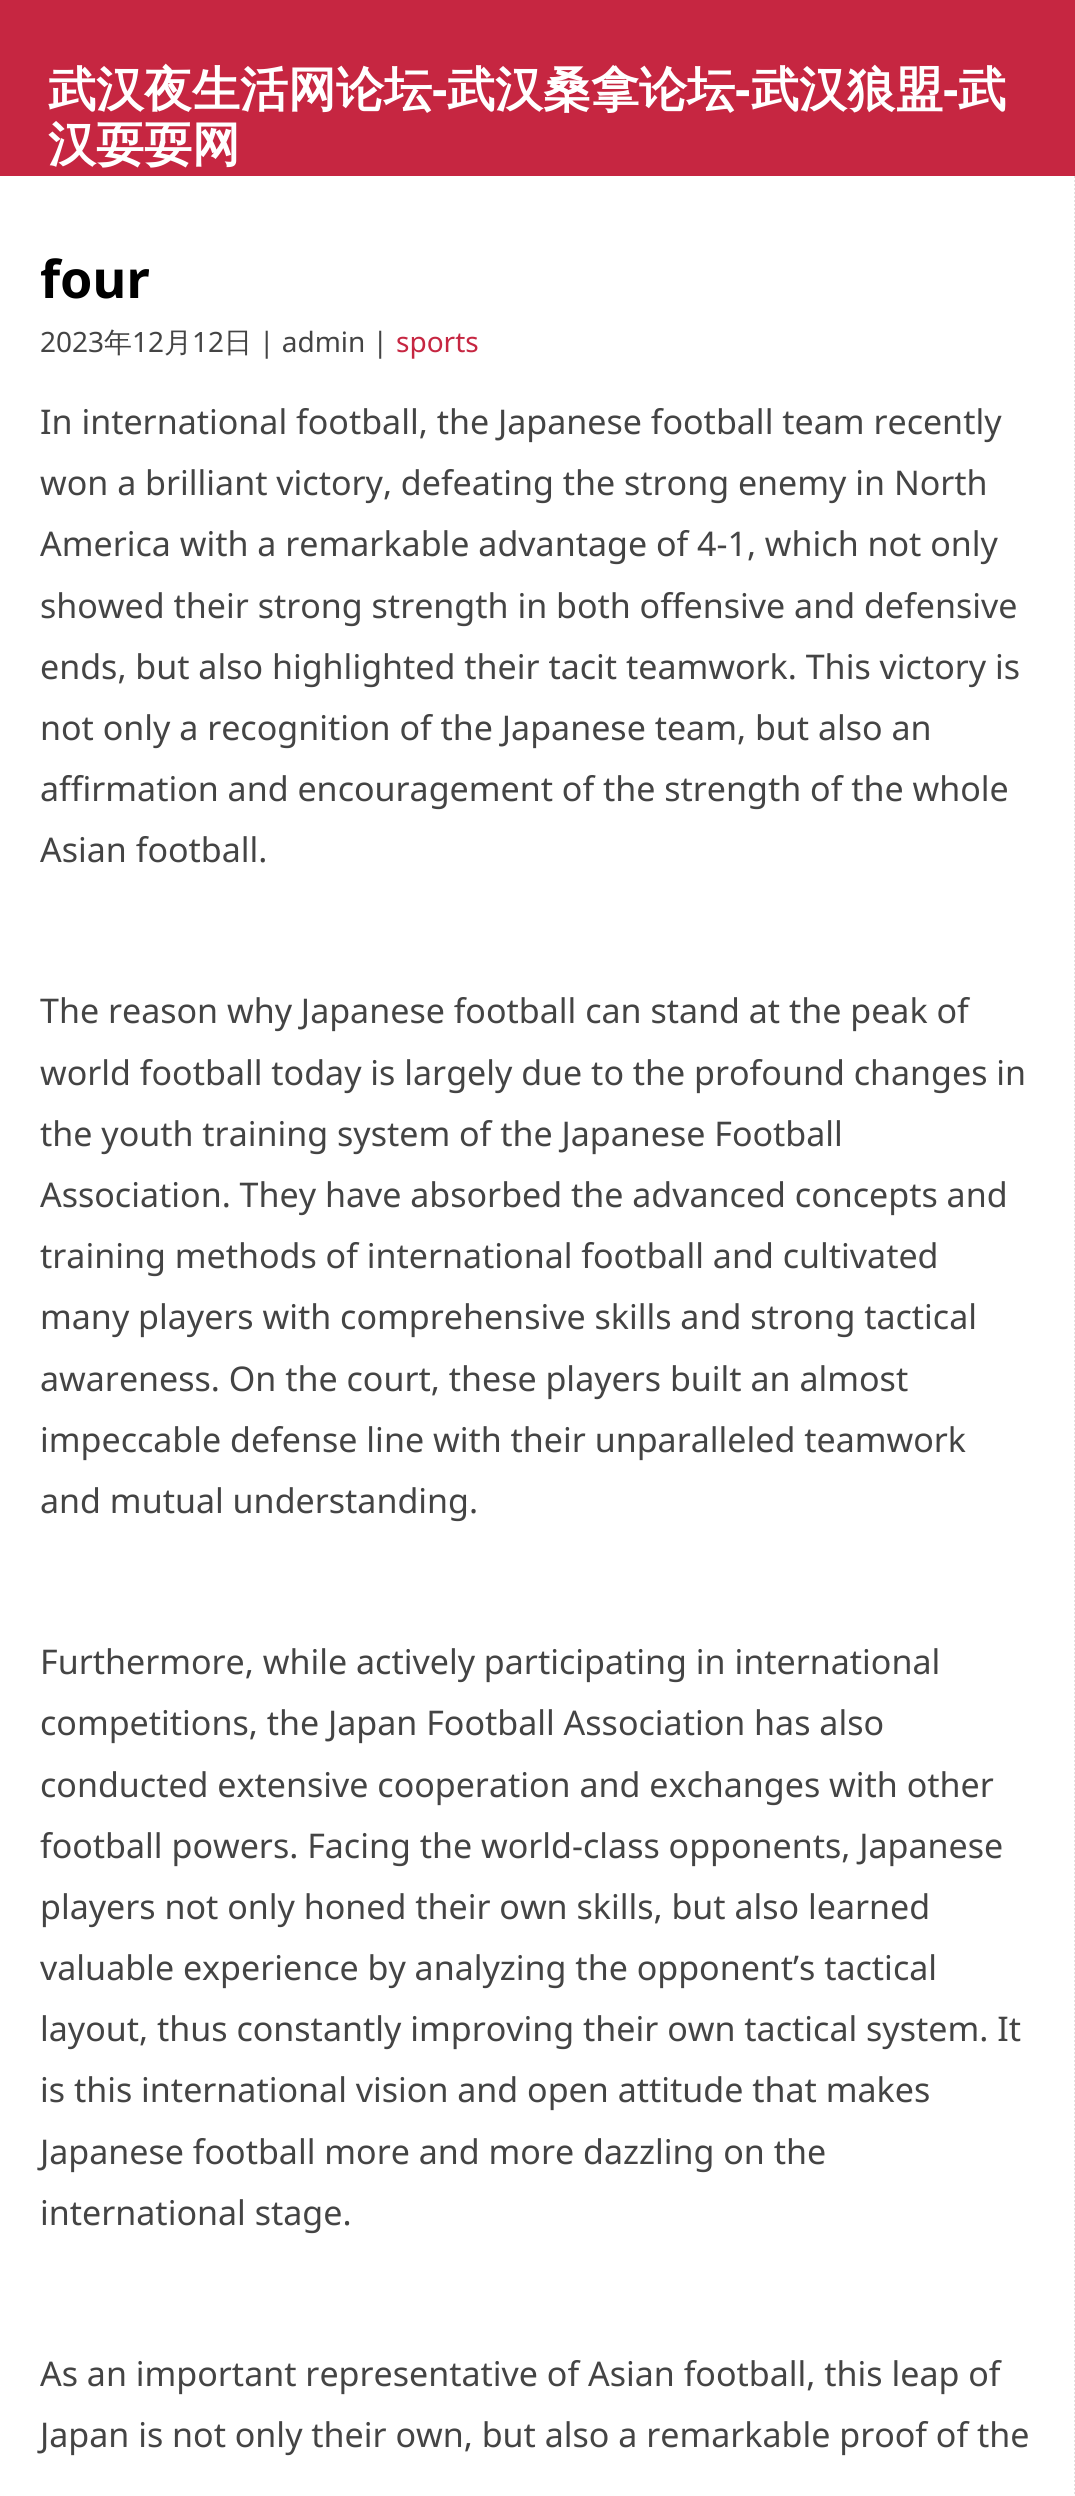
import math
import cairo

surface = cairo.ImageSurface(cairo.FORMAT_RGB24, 1075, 2496)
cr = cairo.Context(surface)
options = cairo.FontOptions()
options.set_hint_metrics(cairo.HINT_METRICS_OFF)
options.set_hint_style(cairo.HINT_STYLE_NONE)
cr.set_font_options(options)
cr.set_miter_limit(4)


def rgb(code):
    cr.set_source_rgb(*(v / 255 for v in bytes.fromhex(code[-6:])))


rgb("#ffffff")
cr.paint()
rgb("#c62641")
cr.rectangle(0, 0, 1075, 176)
cr.fill()
cr.new_path()
cr.move_to(1075, 176)
cr.line_to(1075, 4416)
rgb("#e2e2e2")
cr.set_dash([2, 2])
cr.stroke()
cr.select_font_face("WenQuanYi Zen Hei", cairo.FONT_SLANT_NORMAL, cairo.FONT_WEIGHT_BOLD)
cr.set_font_size(48)
rgb("#ffffff")
cr.move_to(48, 106)
cr.show_text("武汉夜生活网论坛")
cr.select_font_face("Noto Sans", cairo.FONT_SLANT_NORMAL, cairo.FONT_WEIGHT_BOLD)
cr.move_to(432, 106)
cr.show_text("-")
cr.select_font_face("WenQuanYi Zen Hei", cairo.FONT_SLANT_NORMAL, cairo.FONT_WEIGHT_BOLD)
cr.move_to(447, 106)
cr.show_text("武汉桑拿论坛")
cr.select_font_face("Noto Sans", cairo.FONT_SLANT_NORMAL, cairo.FONT_WEIGHT_BOLD)
cr.move_to(735, 106)
cr.show_text("-")
cr.select_font_face("WenQuanYi Zen Hei", cairo.FONT_SLANT_NORMAL, cairo.FONT_WEIGHT_BOLD)
cr.move_to(751, 106)
cr.show_text("武汉狼盟")
cr.select_font_face("Noto Sans", cairo.FONT_SLANT_NORMAL, cairo.FONT_WEIGHT_BOLD)
cr.move_to(943, 106)
cr.show_text("-")
cr.select_font_face("WenQuanYi Zen Hei", cairo.FONT_SLANT_NORMAL, cairo.FONT_WEIGHT_BOLD)
cr.move_to(958, 106)
cr.show_text("武")
cr.move_to(48, 161)
cr.show_text("汉耍耍网")
cr.select_font_face("Noto Sans", cairo.FONT_SLANT_NORMAL, cairo.FONT_WEIGHT_BOLD)
cr.set_font_size(52)
rgb("#000000")
cr.move_to(40, 298)
cr.show_text("four")
cr.select_font_face("Noto Sans")
cr.set_font_size(28)
rgb("#444444")
cr.move_to(40, 352)
cr.show_text("2023")
cr.select_font_face("WenQuanYi Zen Hei Medium")
cr.move_to(104, 352)
cr.show_text("年")
cr.select_font_face("Noto Sans")
cr.move_to(132, 352)
cr.show_text("12")
cr.select_font_face("WenQuanYi Zen Hei Medium")
cr.move_to(164, 352)
cr.show_text("月")
cr.select_font_face("Noto Sans")
cr.move_to(192, 352)
cr.show_text("12")
cr.select_font_face("WenQuanYi Zen Hei Medium")
cr.move_to(224, 352)
cr.show_text("日")
cr.select_font_face("Noto Sans")
cr.move_to(259, 352)
cr.show_text("| admin |")
rgb("#c62641")
cr.move_to(396, 352)
cr.show_text("sports")
cr.set_font_size(34)
rgb("#444444")
for x, y, s in [
    (40, 434, "In international football, the Japanese football team recently"),
    (40, 495, "won a brilliant victory, defeating the strong enemy in North"),
    (40, 556, "America with a remarkable advantage of 4-1, which not only"),
    (40, 618, "showed their strong strength in both offensive and defensive"),
    (40, 679, "ends, but also highlighted their tacit teamwork. This victory is"),
    (40, 740, "not only a recognition of the Japanese team, but also an"),
    (40, 801, "affirmation and encouragement of the strength of the whole"),
    (40, 862, "Asian football."),
    (40, 1023, "The reason why Japanese football can stand at the peak of"),
    (40, 1085, "world football today is largely due to the profound changes in"),
    (40, 1146, "the youth training system of the Japanese Football"),
    (40, 1207, "Association. They have absorbed the advanced concepts and"),
    (40, 1268, "training methods of international football and cultivated"),
    (40, 1329, "many players with comprehensive skills and strong tactical"),
    (40, 1391, "awareness. On the court, these players built an almost"),
    (40, 1452, "impeccable defense line with their unparalleled teamwork"),
    (40, 1513, "and mutual understanding."),
    (40, 1674, "Furthermore, while actively participating in international"),
    (40, 1735, "competitions, the Japan Football Association has also"),
    (40, 1797, "conducted extensive cooperation and exchanges with other"),
    (40, 1858, "football powers. Facing the world-class opponents, Japanese"),
    (40, 1919, "players not only honed their own skills, but also learned"),
    (40, 1980, "valuable experience by analyzing the opponent’s tactical"),
    (40, 2041, "layout, thus constantly improving their own tactical system. It"),
    (40, 2102, "is this international vision and open attitude that makes"),
    (40, 2164, "Japanese football more and more dazzling on the"),
    (40, 2225, "international stage."),
    (40, 2386, "As an important representative of Asian football, this leap of"),
    (40, 2447, "Japan is not only their own, but also a remarkable proof of the"),
]:
    cr.move_to(x, y)
    cr.show_text(s)
surface.write_to_png("page.png")
